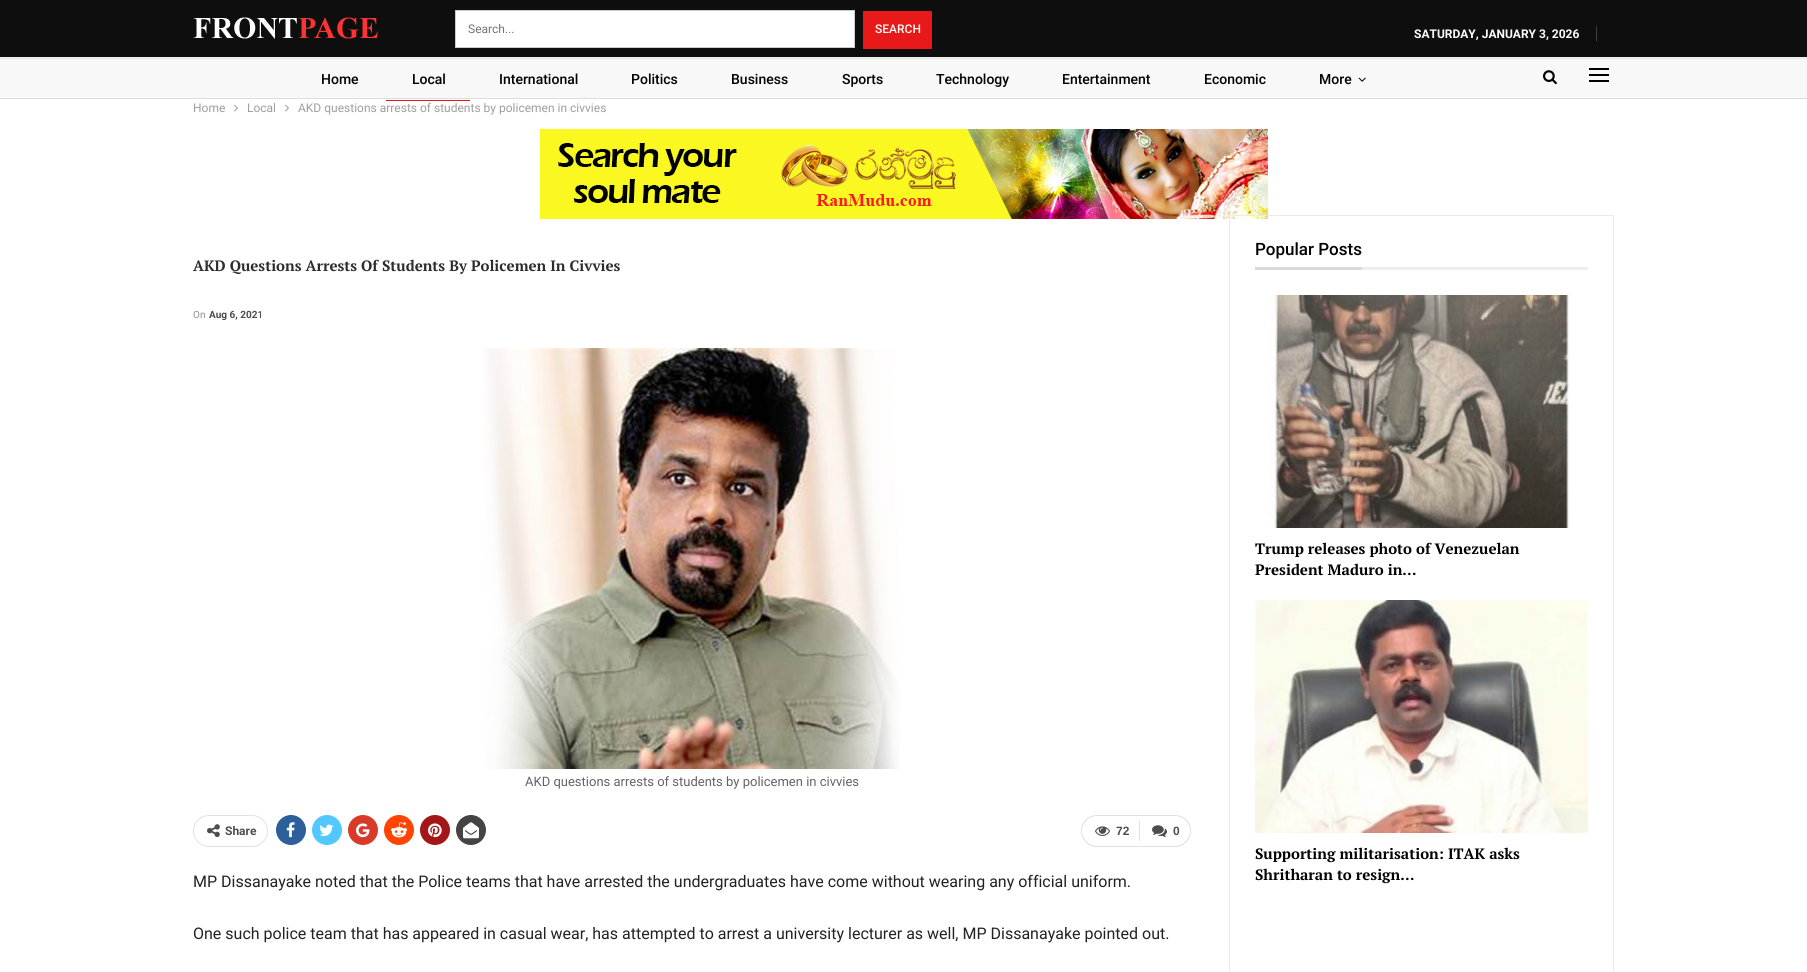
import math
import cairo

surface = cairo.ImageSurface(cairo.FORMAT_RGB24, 1807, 972)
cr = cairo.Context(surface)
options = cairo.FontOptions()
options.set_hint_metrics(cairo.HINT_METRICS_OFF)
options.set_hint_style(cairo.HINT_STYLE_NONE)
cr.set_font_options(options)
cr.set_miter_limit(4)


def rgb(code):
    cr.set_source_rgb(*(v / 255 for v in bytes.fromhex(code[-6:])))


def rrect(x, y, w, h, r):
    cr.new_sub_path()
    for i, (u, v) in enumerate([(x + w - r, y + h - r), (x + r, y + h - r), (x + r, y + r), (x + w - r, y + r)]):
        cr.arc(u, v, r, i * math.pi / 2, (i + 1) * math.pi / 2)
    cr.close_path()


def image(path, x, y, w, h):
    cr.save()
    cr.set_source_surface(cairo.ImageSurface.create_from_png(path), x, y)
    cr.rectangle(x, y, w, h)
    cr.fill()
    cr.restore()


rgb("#ffffff")
cr.paint()
rgb("#0e0e0e")
cr.rectangle(0, 0, 1807, 57)
cr.fill()
rgb("#efefef")
cr.rectangle(0, 57, 1807, 1)
cr.fill()
image("img/1.png", 193, 17, 185, 22)
rgb("#ffffff")
cr.rectangle(455.5, 10.5, 399, 37)
cr.fill_preserve()
rgb("#cccccc")
cr.set_line_width(1)
cr.stroke()
for x, y, w, h, color in [
    (863, 11, 69, 38, "#e81919"),
    (1596, 26, 1, 15, "#3e3e3e"),
    (0, 59, 1807, 39, "#f8f8f8"),
    (0, 58, 1807, 1, "#e8e8e8"),
    (0, 98, 1807, 1, "#dedede"),
    (386, 100, 84, 1, "#e81919"),
]:
    rgb(color)
    cr.rectangle(x, y, w, h)
    cr.fill()
image("img/2.png", 1358, 77, 8, 5)
image("img/3.png", 1543, 70, 14, 15)
for x, y, w, h, color in [
    (1589, 74, 20, 2, "#000000"),
    (1589, 68, 20, 2, "#000000"),
    (1589, 80, 20, 2, "#000000"),
]:
    rgb(color)
    cr.rectangle(x, y, w, h)
    cr.fill()
image("img/4.png", 234, 104, 4, 8)
image("img/4.png", 285, 104, 4, 8)
image("img/5.png", 540, 129, 728, 90)
image("img/6.png", 484, 348, 416, 421)
rrect(193.5, 815.5, 74, 31, 15.5)
rgb("#e2e2e2")
cr.stroke()
image("img/7.png", 207, 824, 13, 14)
rgb("#2d5f9a")
cr.arc(291, 830, 15, 0, 2 * math.pi)
cr.fill()
image("img/8.png", 286, 822, 9, 16)
rgb("#53c7ff")
cr.arc(327, 830, 15, 0, 2 * math.pi)
cr.fill()
image("img/9.png", 319, 824, 15, 12)
rgb("#d93b2b")
cr.arc(363, 830, 15, 0, 2 * math.pi)
cr.fill()
image("img/10.png", 356, 823, 14, 15)
rgb("#ff4500")
cr.arc(399, 830, 15, 0, 2 * math.pi)
cr.fill()
image("img/11.png", 391, 822, 16, 16)
rgb("#a41719")
cr.arc(435, 830, 15, 0, 2 * math.pi)
cr.fill()
image("img/12.png", 428, 823, 14, 15)
rgb("#444444")
cr.arc(471, 830, 15, 0, 2 * math.pi)
cr.fill()
image("img/13.png", 463, 822, 16, 17)
rgb("#e2e2e2")
cr.set_fill_rule(cairo.FILL_RULE_EVEN_ODD)
cr.new_path()
cr.move_to(1097, 815)
cr.line_to(1139, 815)
cr.line_to(1139, 847)
cr.line_to(1097, 847)
cr.curve_to(1088, 847, 1081, 840, 1081, 831)
cr.curve_to(1081, 822, 1088, 815, 1097, 815)
cr.close_path()
cr.move_to(1097, 816)
cr.line_to(1139, 816)
cr.line_to(1139, 846)
cr.line_to(1097, 846)
cr.curve_to(1089, 846, 1082, 839, 1082, 831)
cr.curve_to(1082, 823, 1089, 816, 1097, 816)
cr.close_path()
cr.fill()
image("img/14.png", 1095, 826, 15, 10)
cr.new_path()
cr.move_to(1139, 815)
cr.line_to(1175, 815)
cr.curve_to(1184, 815, 1191, 822, 1191, 831)
cr.curve_to(1191, 840, 1184, 847, 1175, 847)
cr.line_to(1139, 847)
cr.close_path()
cr.move_to(1139, 816)
cr.line_to(1175, 816)
cr.curve_to(1183, 816, 1190, 823, 1190, 831)
cr.curve_to(1190, 839, 1183, 846, 1175, 846)
cr.line_to(1139, 846)
cr.close_path()
cr.fill()
cr.rectangle(1139, 821, 1, 20)
cr.fill()
image("img/15.png", 1152, 825, 15, 12)
cr.rectangle(1229.5, 215.5, 384, 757)
rgb("#eaeaea")
cr.stroke()
rgb("#dadada")
cr.rectangle(1255, 267, 107, 3)
cr.fill()
rgb("#ededed")
cr.rectangle(1362, 267, 226, 3)
cr.fill()
image("img/16.png", 1268, 295, 302, 233)
image("img/17.png", 1255, 600, 333, 233)
cr.select_font_face("Roboto")
cr.set_font_size(12)
rgb("#757575")
cr.move_to(468, 33)
cr.show_text("Search...")
cr.select_font_face("Roboto Medium")
rgb("#ffffff")
cr.move_to(875, 33)
cr.show_text("SEARCH")
cr.select_font_face("Roboto", cairo.FONT_SLANT_NORMAL, cairo.FONT_WEIGHT_BOLD)
cr.move_to(1414, 38)
cr.show_text("SATURDAY, JANUARY 3, 2026")
cr.select_font_face("Roboto Medium")
cr.set_font_size(14)
rgb("#000000")
for x, y, s in [
    (321, 84, "Home"),
    (412, 84, "Local"),
    (499, 84, "International"),
    (631, 84, "Politics"),
    (731, 84, "Business"),
    (842, 84, "Sports"),
    (936, 84, "Technology"),
    (1062, 84, "Entertainment"),
    (1204, 84, "Economic"),
    (1319, 84, "More"),
]:
    cr.move_to(x, y)
    cr.show_text(s)
cr.select_font_face("Roboto")
cr.set_font_size(12)
rgb("#9e9e9e")
for x, y, s in [
    (193, 112, "Home"),
    (247, 112, "Local"),
    (298, 112, "AKD questions arrests of students by policemen in civvies"),
]:
    cr.move_to(x, y)
    cr.show_text(s)
cr.select_font_face("PT Serif", cairo.FONT_SLANT_NORMAL, cairo.FONT_WEIGHT_BOLD)
cr.set_font_size(15)
rgb("#2d2d2d")
cr.move_to(193, 271)
cr.show_text("AKD Questions Arrests Of Students By Policemen In Civvies")
cr.select_font_face("Roboto")
cr.set_font_size(10)
rgb("#8f8f8f")
cr.move_to(193, 318)
cr.show_text("On")
cr.select_font_face("Roboto", cairo.FONT_SLANT_NORMAL, cairo.FONT_WEIGHT_BOLD)
rgb("#4d4d4d")
cr.move_to(209, 318)
cr.show_text("Aug 6, 2021")
cr.select_font_face("Roboto")
cr.set_font_size(13)
rgb("#636363")
cr.move_to(525, 786)
cr.show_text("AKD questions arrests of students by policemen in civvies")
cr.select_font_face("Roboto", cairo.FONT_SLANT_NORMAL, cairo.FONT_WEIGHT_BOLD)
cr.set_font_size(12)
rgb("#4d4d4d")
cr.move_to(225, 835)
cr.show_text("Share")
cr.select_font_face("Liberation Sans", cairo.FONT_SLANT_NORMAL, cairo.FONT_WEIGHT_BOLD)
cr.move_to(1116, 835)
cr.show_text("72")
cr.move_to(1173, 835)
cr.show_text("0")
cr.select_font_face("Roboto")
cr.set_font_size(16)
rgb("#222222")
cr.move_to(193, 887)
cr.show_text("MP Dissanayake noted that the Police teams that have arrested the undergraduates have come without wearing any official uniform.")
cr.move_to(193, 939)
cr.show_text("One such police team that has appeared in casual wear, has attempted to arrest a university lecturer as well, MP Dissanayake pointed out.")
cr.select_font_face("Roboto Medium")
cr.set_font_size(17)
rgb("#000000")
cr.move_to(1255, 255)
cr.show_text("Popular Posts")
cr.select_font_face("PT Serif", cairo.FONT_SLANT_NORMAL, cairo.FONT_WEIGHT_BOLD)
cr.set_font_size(15)
for x, y, s in [
    (1255, 554, "Trump releases photo of Venezuelan"),
    (1255, 575, "President Maduro in…"),
    (1255, 859, "Supporting militarisation: ITAK asks"),
    (1255, 880, "Shritharan to resign…"),
]:
    cr.move_to(x, y)
    cr.show_text(s)
surface.write_to_png("page.png")
